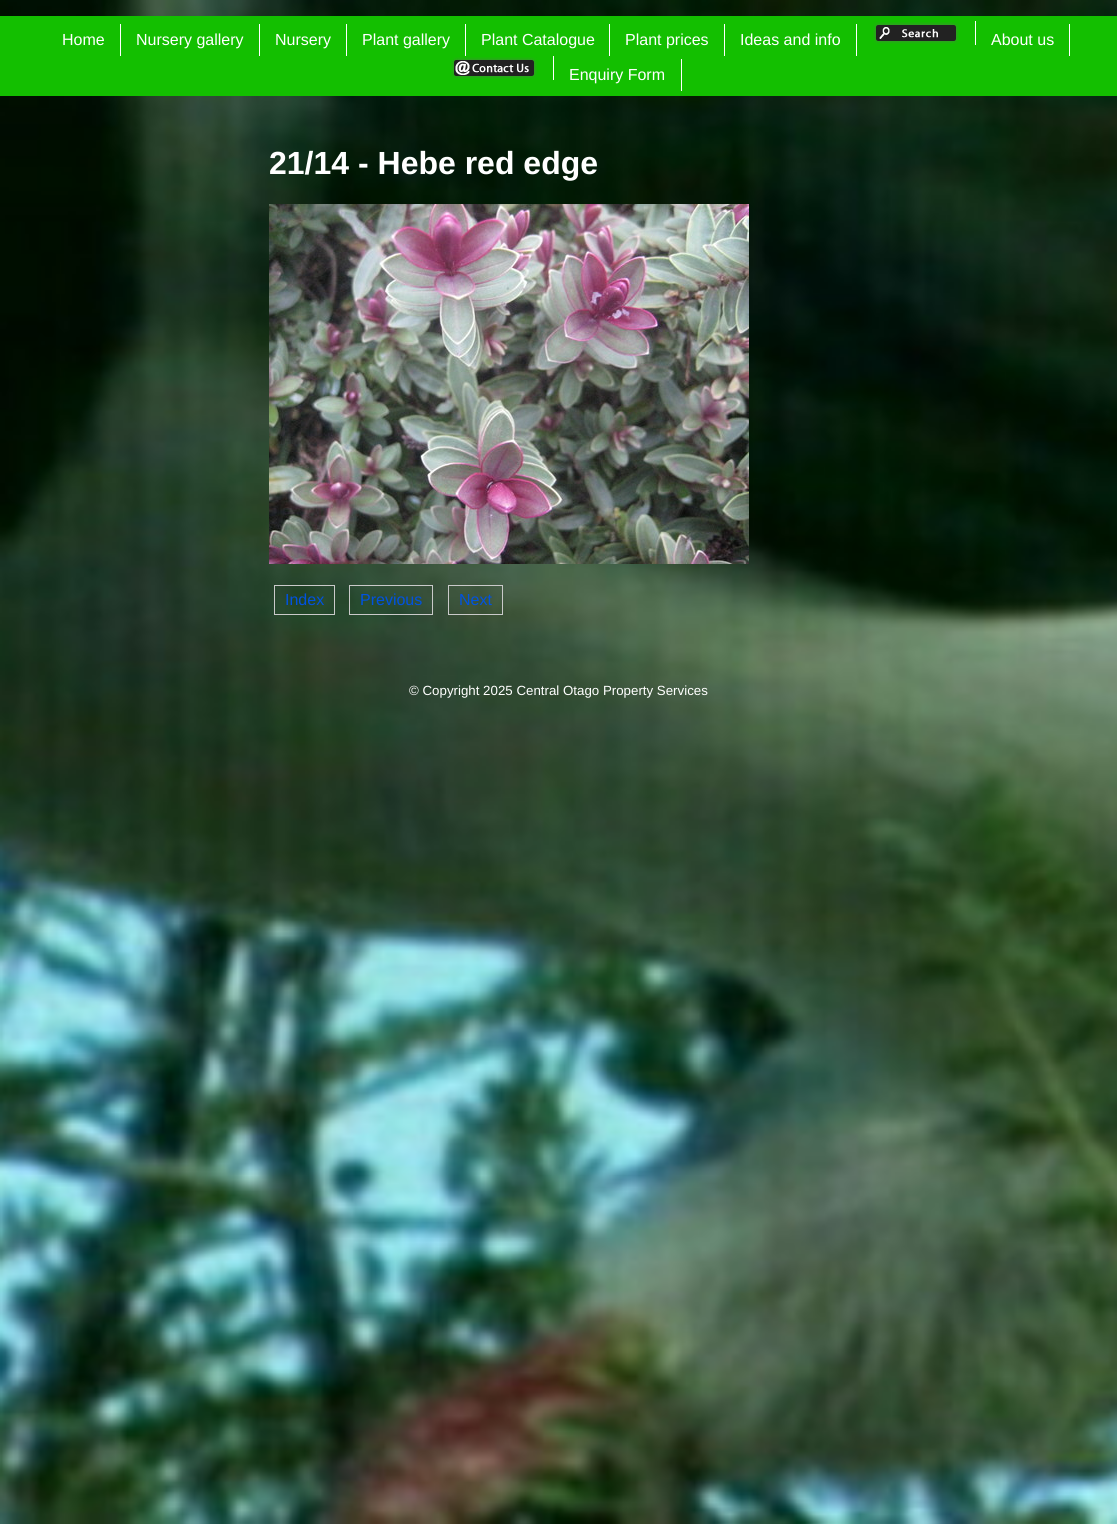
import math
import cairo

surface = cairo.ImageSurface(cairo.FORMAT_RGB24, 1117, 1524)
cr = cairo.Context(surface)
options = cairo.FontOptions()
options.set_hint_metrics(cairo.HINT_METRICS_OFF)
options.set_hint_style(cairo.HINT_STYLE_NONE)
cr.set_font_options(options)
cr.set_miter_limit(4)


def rgb(code):
    cr.set_source_rgb(*(v / 255 for v in bytes.fromhex(code[-6:])))


def image(path, x, y, w, h):
    cr.save()
    cr.set_source_surface(cairo.ImageSurface.create_from_png(path), x, y)
    cr.rectangle(x, y, w, h)
    cr.fill()
    cr.restore()


rgb("#ffffff")
cr.paint()
image("img/1.png", 0, 0, 1117, 1524)
for x, y, w, h, color in [
    (0, 16, 1117, 80, "#13bf00"),
    (120, 24, 1, 32, "#ffffff"),
    (259, 24, 1, 32, "#ffffff"),
    (346, 24, 1, 32, "#ffffff"),
    (465, 24, 1, 32, "#ffffff"),
    (609, 24, 1, 32, "#ffffff"),
    (724, 24, 1, 32, "#ffffff"),
    (856, 24, 1, 32, "#ffffff"),
    (975, 21, 1, 24, "#ffffff"),
]:
    rgb(color)
    cr.rectangle(x, y, w, h)
    cr.fill()
image("img/2.png", 873, 22, 86, 22)
cr.rectangle(1069, 24, 1, 32)
cr.fill()
cr.rectangle(553, 56, 1, 24)
cr.fill()
image("img/3.png", 451, 57, 86, 22)
cr.rectangle(681, 59, 1, 32)
cr.fill()
image("img/4.png", 269, 204, 480, 360)
cr.rectangle(274.5, 585.5, 60, 29)
rgb("#cacaca")
cr.set_line_width(1)
cr.stroke()
cr.rectangle(349.5, 585.5, 83, 29)
cr.stroke()
cr.rectangle(448.5, 585.5, 54, 29)
cr.stroke()
cr.select_font_face("Liberation Sans")
cr.set_font_size(16)
rgb("#ffffff")
for x, y, s in [
    (62, 45, "Home"),
    (136, 45, "Nursery gallery"),
    (275, 45, "Nursery"),
    (362, 45, "Plant gallery"),
    (481, 45, "Plant Catalogue"),
    (625, 45, "Plant prices"),
    (740, 45, "Ideas and info"),
    (991, 45, "About us"),
    (569, 80, "Enquiry Form"),
]:
    cr.move_to(x, y)
    cr.show_text(s)
cr.select_font_face("Liberation Sans", cairo.FONT_SLANT_NORMAL, cairo.FONT_WEIGHT_BOLD)
cr.set_font_size(32)
cr.move_to(269, 174)
cr.show_text("21/14 - Hebe red edge")
cr.select_font_face("Liberation Sans")
cr.set_font_size(16)
rgb("#0052e0")
for x, y, s in [
    (285, 605, "Index"),
    (360, 605, "Previous"),
    (459, 605, "Next"),
]:
    cr.move_to(x, y)
    cr.show_text(s)
cr.set_font_size(13.3)
rgb("#ffffff")
cr.move_to(409, 695)
cr.show_text("© Copyright 2025 Central Otago Property Services")
surface.write_to_png("page.png")
